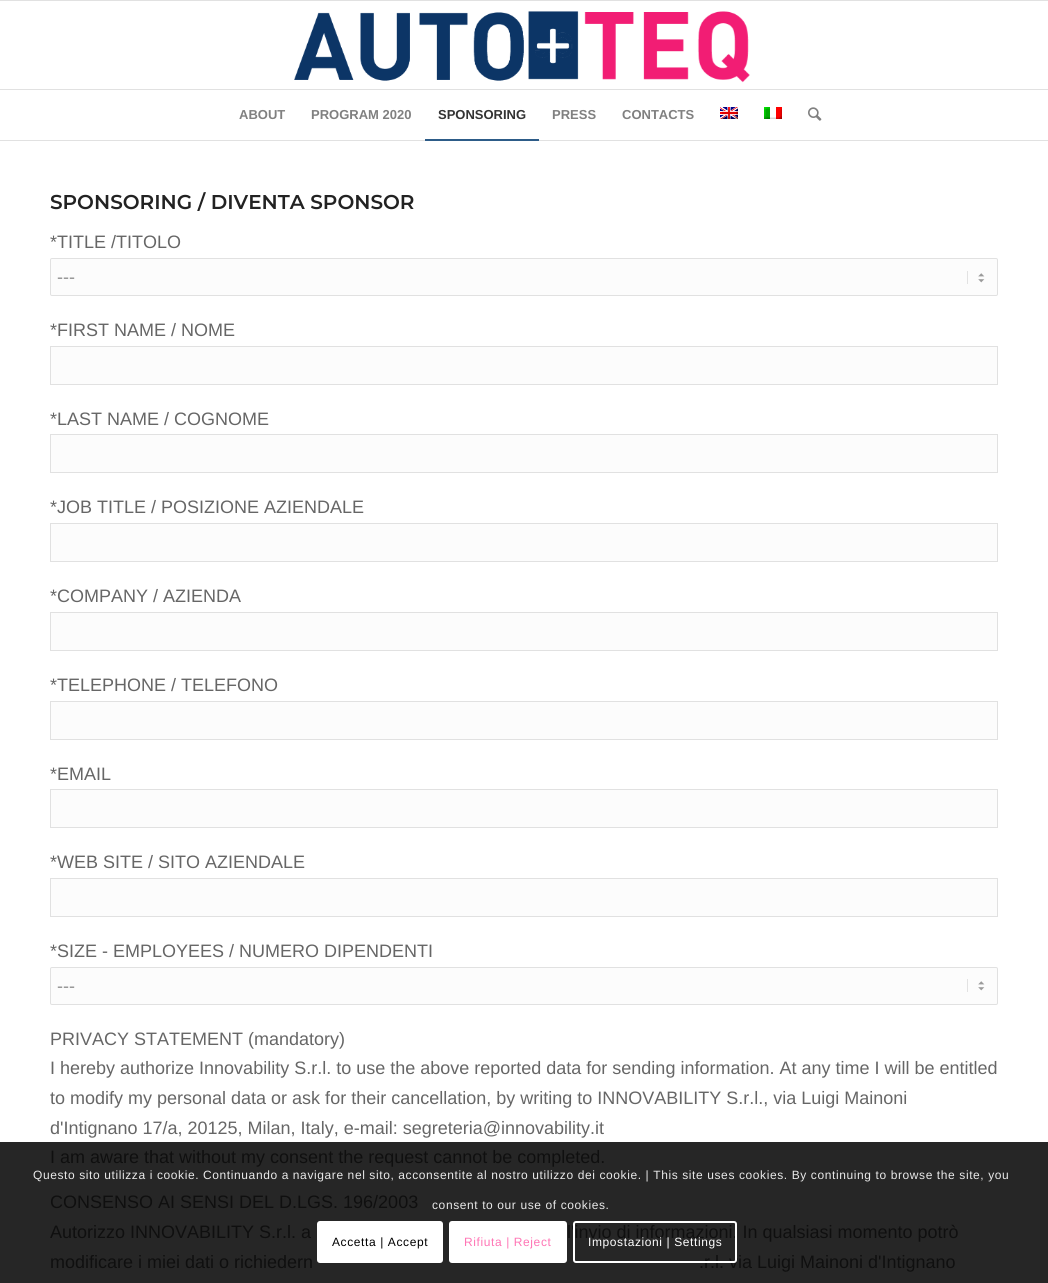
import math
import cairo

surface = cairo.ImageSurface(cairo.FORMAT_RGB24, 1048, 1283)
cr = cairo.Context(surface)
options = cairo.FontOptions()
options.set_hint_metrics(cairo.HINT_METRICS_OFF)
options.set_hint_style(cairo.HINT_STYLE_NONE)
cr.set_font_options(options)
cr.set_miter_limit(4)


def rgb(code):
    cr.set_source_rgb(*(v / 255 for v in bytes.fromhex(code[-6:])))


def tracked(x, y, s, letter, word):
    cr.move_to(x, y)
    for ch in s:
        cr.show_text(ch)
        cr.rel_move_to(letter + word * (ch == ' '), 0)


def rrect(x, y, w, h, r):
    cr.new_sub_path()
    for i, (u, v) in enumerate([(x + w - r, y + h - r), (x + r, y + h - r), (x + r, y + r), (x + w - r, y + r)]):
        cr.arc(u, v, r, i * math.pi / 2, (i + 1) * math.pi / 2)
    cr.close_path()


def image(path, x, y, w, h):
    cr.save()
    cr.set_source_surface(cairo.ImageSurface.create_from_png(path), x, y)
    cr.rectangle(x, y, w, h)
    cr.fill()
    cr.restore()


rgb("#ffffff")
cr.paint()
rgb("#e1e1e1")
cr.rectangle(0, 0, 1048, 1)
cr.fill()
cr.rectangle(0, 140, 1048, 1)
cr.fill()
image("img/1.png", 294, 11, 456, 72)
cr.rectangle(0, 89, 1048, 1)
cr.fill()
rgb("#2d5c88")
cr.rectangle(425, 139, 114, 2)
cr.fill()
image("img/2.png", 720, 107, 18, 12)
image("img/3.png", 764, 107, 18, 12)
image("img/4.png", 808, 107, 14, 14)
rgb("#262626")
cr.rectangle(0, 1142, 1048, 141)
cr.fill()
rgb("#fcfcfc")
rrect(50, 258, 948, 38, 2)
cr.fill()
image("img/5.png", 967, 271, 18, 13)
rrect(50.5, 258.5, 947, 37, 1.5)
rgb("#e1e1e1")
cr.set_line_width(1)
cr.stroke()
rgb("#fcfcfc")
cr.rectangle(50.5, 346.5, 947, 38)
cr.fill_preserve()
rgb("#e1e1e1")
cr.stroke()
rgb("#fcfcfc")
cr.rectangle(50.5, 434.5, 947, 38)
cr.fill_preserve()
rgb("#e1e1e1")
cr.stroke()
rgb("#fcfcfc")
cr.rectangle(50.5, 523.5, 947, 38)
cr.fill_preserve()
rgb("#e1e1e1")
cr.stroke()
rgb("#fcfcfc")
cr.rectangle(50.5, 612.5, 947, 38)
cr.fill_preserve()
rgb("#e1e1e1")
cr.stroke()
rgb("#fcfcfc")
cr.rectangle(50.5, 701.5, 947, 38)
cr.fill_preserve()
rgb("#e1e1e1")
cr.stroke()
rgb("#fcfcfc")
cr.rectangle(50.5, 789.5, 947, 38)
cr.fill_preserve()
rgb("#e1e1e1")
cr.stroke()
rgb("#fcfcfc")
cr.rectangle(50.5, 878.5, 947, 38)
cr.fill_preserve()
rgb("#e1e1e1")
cr.stroke()
rgb("#fcfcfc")
rrect(50, 967, 948, 38, 2)
cr.fill()
image("img/5.png", 967, 979, 18, 13)
rrect(50.5, 967.5, 947, 37, 1.5)
rgb("#e1e1e1")
cr.stroke()
rgb("#ffffff")
rrect(317, 1221, 126, 42, 3)
cr.fill()
rrect(450, 1222, 116, 40, 2)
cr.fill_preserve()
cr.set_line_width(2)
cr.stroke()
cr.select_font_face("Liberation Sans", cairo.FONT_SLANT_NORMAL, cairo.FONT_WEIGHT_BOLD)
cr.set_font_size(13)
rgb("#808080")
cr.move_to(239, 119)
cr.show_text("ABOUT")
cr.move_to(311, 119)
cr.show_text("PROGRAM 2020")
rgb("#333333")
cr.move_to(438, 119)
cr.show_text("SPONSORING")
rgb("#808080")
cr.move_to(552, 119)
cr.show_text("PRESS")
cr.move_to(622, 119)
cr.show_text("CONTACTS")
cr.select_font_face("Montserrat SemiBold")
cr.set_font_size(20)
rgb("#222222")
cr.move_to(50, 209)
cr.show_text("SPONSORING / DIVENTA SPONSOR")
cr.select_font_face("Liberation Sans")
cr.set_font_size(18)
rgb("#666666")
cr.move_to(50, 248)
cr.show_text("*TITLE /TITOLO")
rgb("#919191")
cr.move_to(57, 283)
cr.show_text("---")
rgb("#666666")
for x, y, s in [
    (50, 336, "*FIRST NAME / NOME"),
    (50, 425, "*LAST NAME / COGNOME"),
    (50, 513, "*JOB TITLE / POSIZIONE AZIENDALE"),
    (50, 602, "*COMPANY / AZIENDA"),
    (50, 691, "*TELEPHONE / TELEFONO"),
    (50, 780, "*EMAIL"),
    (50, 868, "*WEB SITE / SITO AZIENDALE"),
    (50, 957, "*SIZE - EMPLOYEES / NUMERO DIPENDENTI"),
]:
    cr.move_to(x, y)
    cr.show_text(s)
rgb("#919191")
cr.move_to(57, 992)
cr.show_text("---")
rgb("#666666")
for x, y, s in [
    (50, 1045, "PRIVACY STATEMENT (mandatory)"),
    (50, 1074, "I hereby authorize Innovability S.r.l. to use the above reported data for sending information. At any time I will be entitled"),
    (50, 1104, "to modify my personal data or ask for their cancellation, by writing to INNOVABILITY S.r.l., via Luigi Mainoni"),
    (50, 1134, "d'Intignano 17/a, 20125, Milan, Italy, e-mail: segreteria@innovability.it"),
]:
    cr.move_to(x, y)
    cr.show_text(s)
rgb("#0f0f0f")
for x, y, s in [
    (50, 1163, "I am aware that without my consent the request cannot be completed."),
    (50, 1208, "CONSENSO AI SENSI DEL D.LGS. 196/2003"),
    (50, 1238, "Autorizzo INNOVABILITY S.r.l. a"),
    (567, 1238, "l'invio di informazioni. In qualsiasi momento potrò"),
    (50, 1268, "modificare i miei dati o richiedern"),
    (699, 1268, ".r.l. via Luigi Mainoni d'Intignano"),
]:
    cr.move_to(x, y)
    cr.show_text(s)
cr.set_font_size(12)
rgb("#e9e9e9")
tracked(33, 1179, "Questo sito utilizza i cookie. Continuando a navigare nel sito, acconsentite al nostro utilizzo dei cookie. | This site uses cookies. By continuing to browse the site, you", 0.6, 0)
tracked(432, 1209, "consent to our use of cookies.", 0.6, 0)
rgb("#000000")
tracked(332, 1246, "Accetta | Accept", 0.6, 0)
rgb("#ff75b5")
tracked(464, 1246, "Rifiuta | Reject", 0.6, 0)
rrect(574, 1222, 162, 40, 2)
rgb("#ffffff")
cr.stroke()
tracked(588, 1246, "Impostazioni | Settings", 0.6, 0)
surface.write_to_png("page.png")
